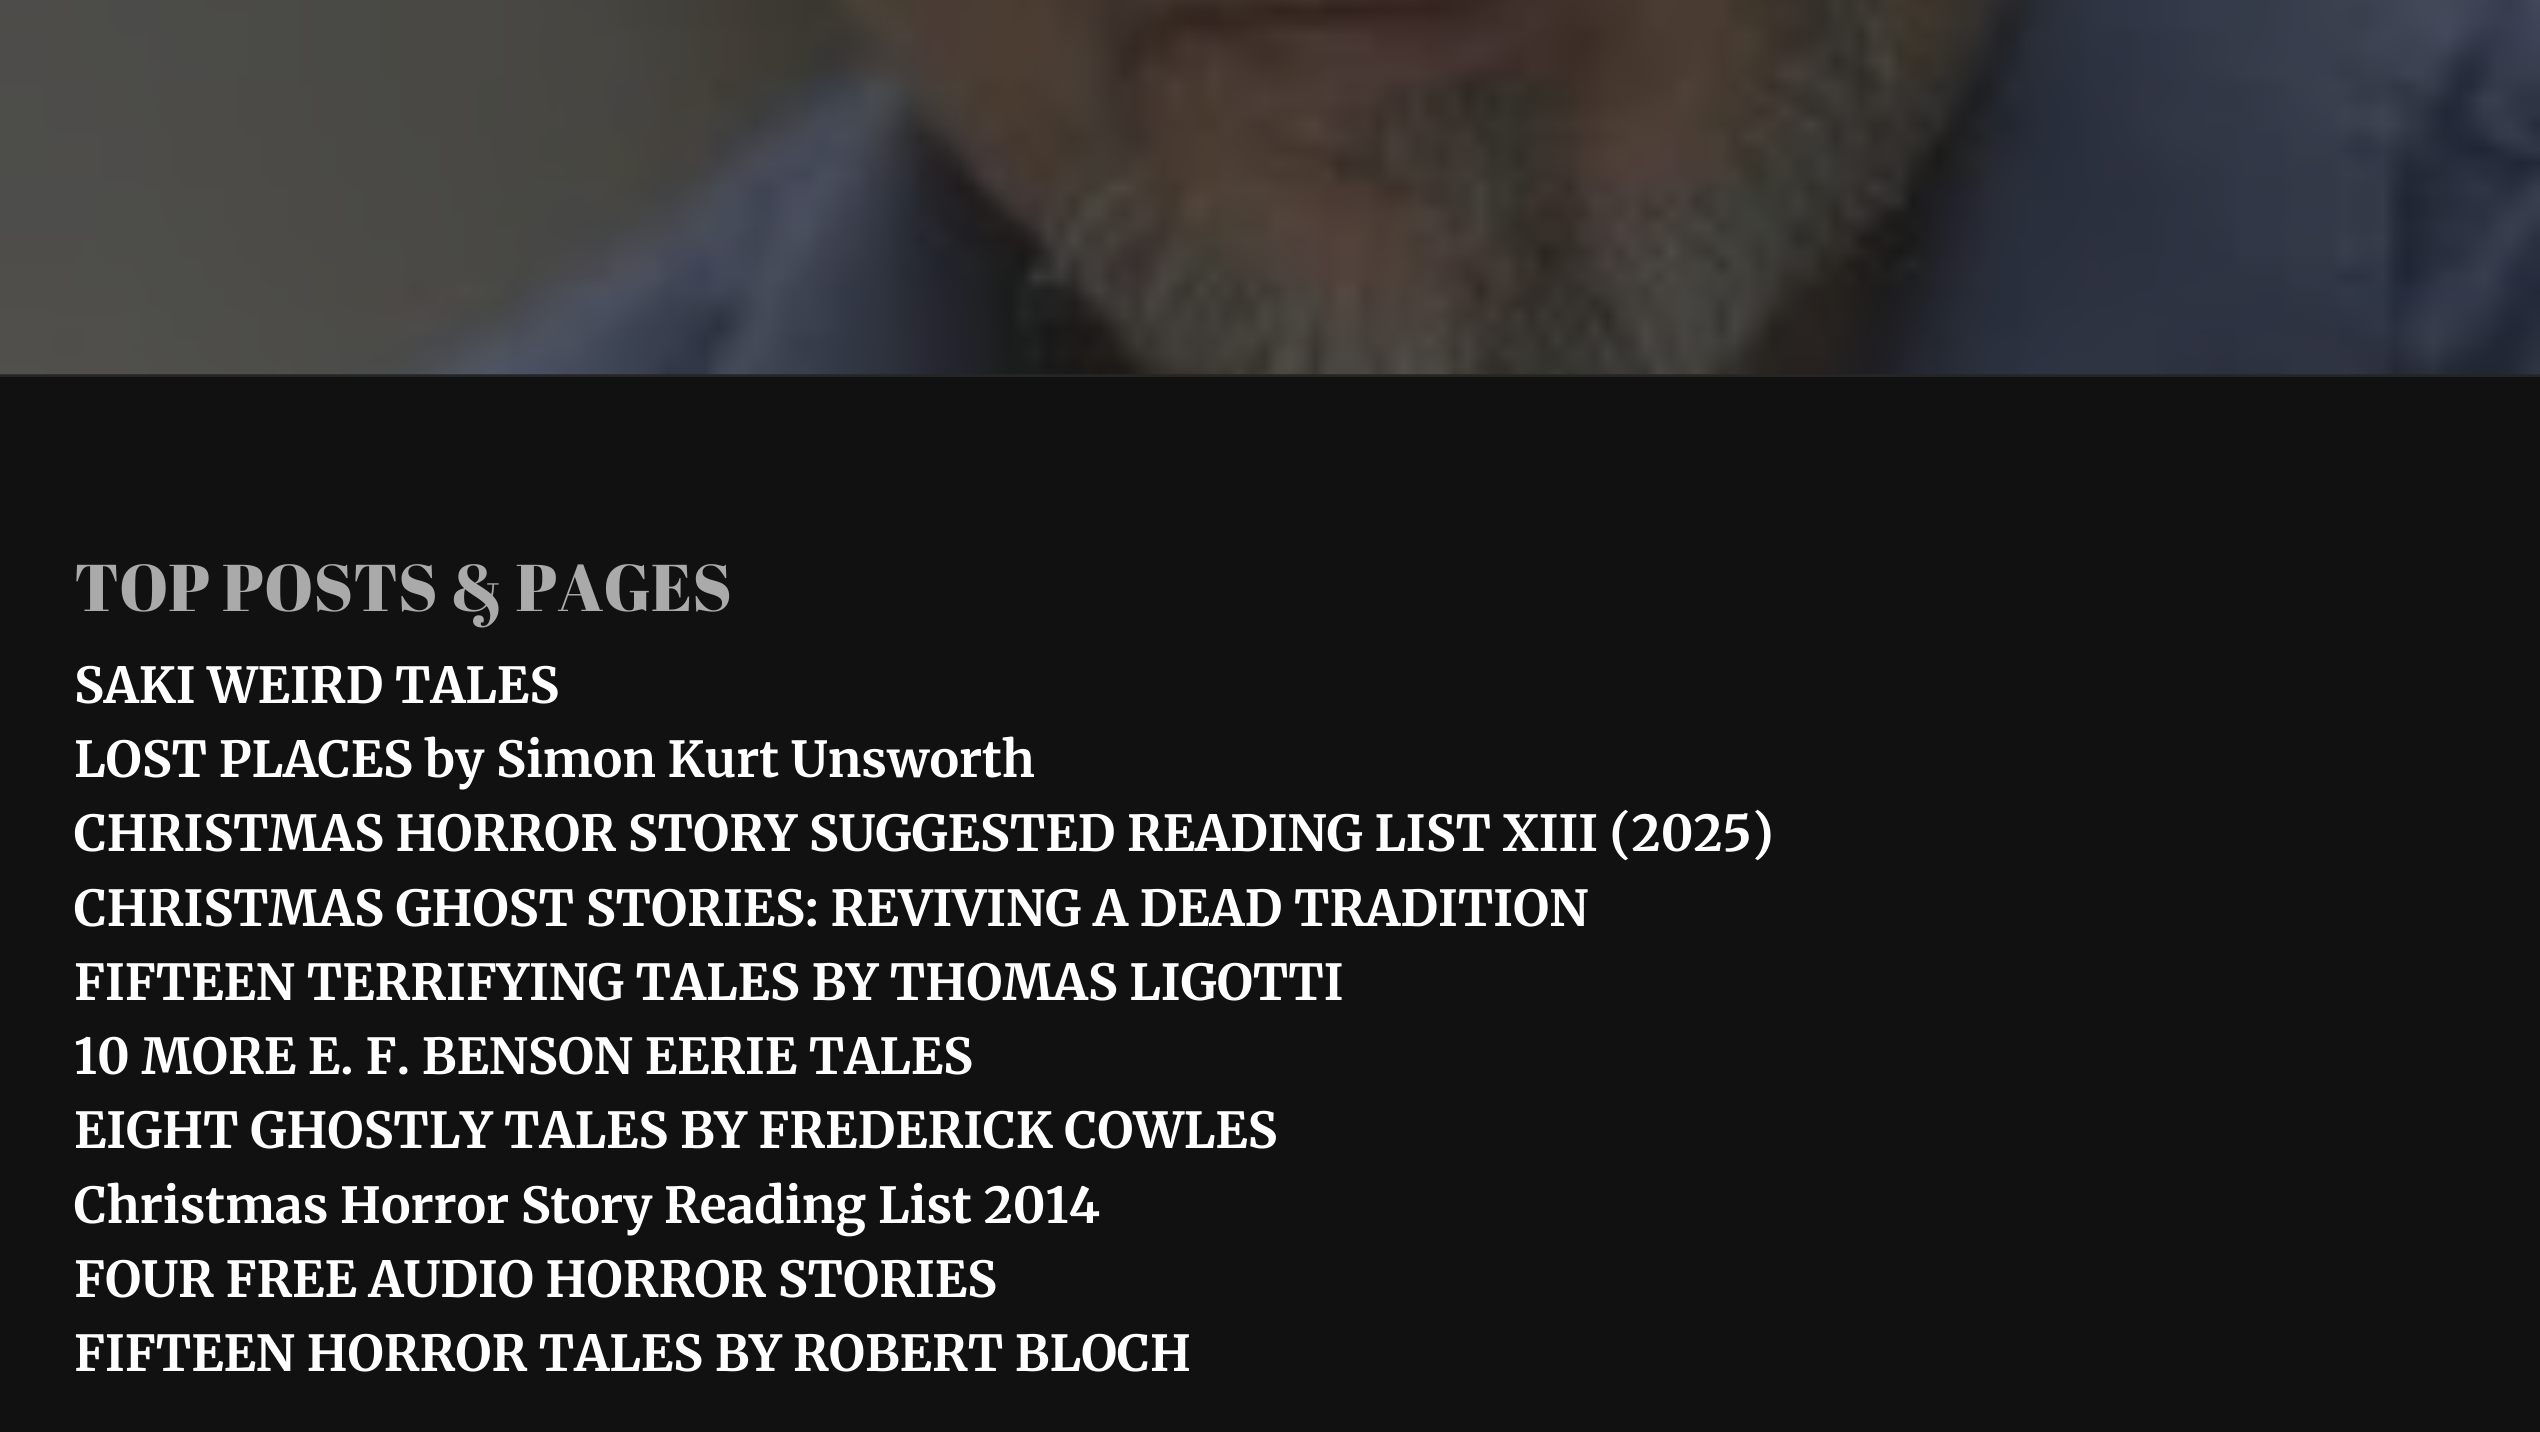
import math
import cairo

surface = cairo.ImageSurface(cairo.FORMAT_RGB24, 2540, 1432)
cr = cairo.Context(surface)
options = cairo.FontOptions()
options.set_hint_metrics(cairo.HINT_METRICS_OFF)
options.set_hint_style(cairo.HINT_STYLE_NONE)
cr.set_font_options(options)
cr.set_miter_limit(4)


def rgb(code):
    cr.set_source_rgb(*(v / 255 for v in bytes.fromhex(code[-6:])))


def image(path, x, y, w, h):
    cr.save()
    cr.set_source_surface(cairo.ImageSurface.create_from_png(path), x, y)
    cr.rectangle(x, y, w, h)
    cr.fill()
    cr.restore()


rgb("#111111")
cr.paint()
rgb("#222222")
cr.rectangle(0, 0, 2540, 374)
cr.fill()
rgb("#252525")
cr.rectangle(0, 374, 2540, 3)
cr.fill()
image("img/1.png", 0, 0, 2540, 375)
cr.select_font_face("Abril Fatface")
cr.set_font_size(66)
rgb("#aaaaaa")
cr.move_to(74, 611)
cr.show_text("TOP POSTS & PAGES")
cr.select_font_face("Merriweather", cairo.FONT_SLANT_NORMAL, cairo.FONT_WEIGHT_BOLD)
cr.set_font_size(49.5)
rgb("#ffffff")
for x, y, s in [
    (74, 703, "SAKI WEIRD TALES"),
    (74, 777, "LOST PLACES by Simon Kurt Unsworth"),
    (74, 851, "CHRISTMAS HORROR STORY SUGGESTED READING LIST XIII (2025)"),
    (74, 926, "CHRISTMAS GHOST STORIES: REVIVING A DEAD TRADITION"),
    (74, 1000, "FIFTEEN TERRIFYING TALES BY THOMAS LIGOTTI"),
    (74, 1074, "10 MORE E. F. BENSON EERIE TALES"),
    (74, 1148, "EIGHT GHOSTLY TALES BY FREDERICK COWLES"),
    (74, 1223, "Christmas Horror Story Reading List 2014"),
    (74, 1297, "FOUR FREE AUDIO HORROR STORIES"),
    (74, 1371, "FIFTEEN HORROR TALES BY ROBERT BLOCH"),
]:
    cr.move_to(x, y)
    cr.show_text(s)
surface.write_to_png("page.png")
